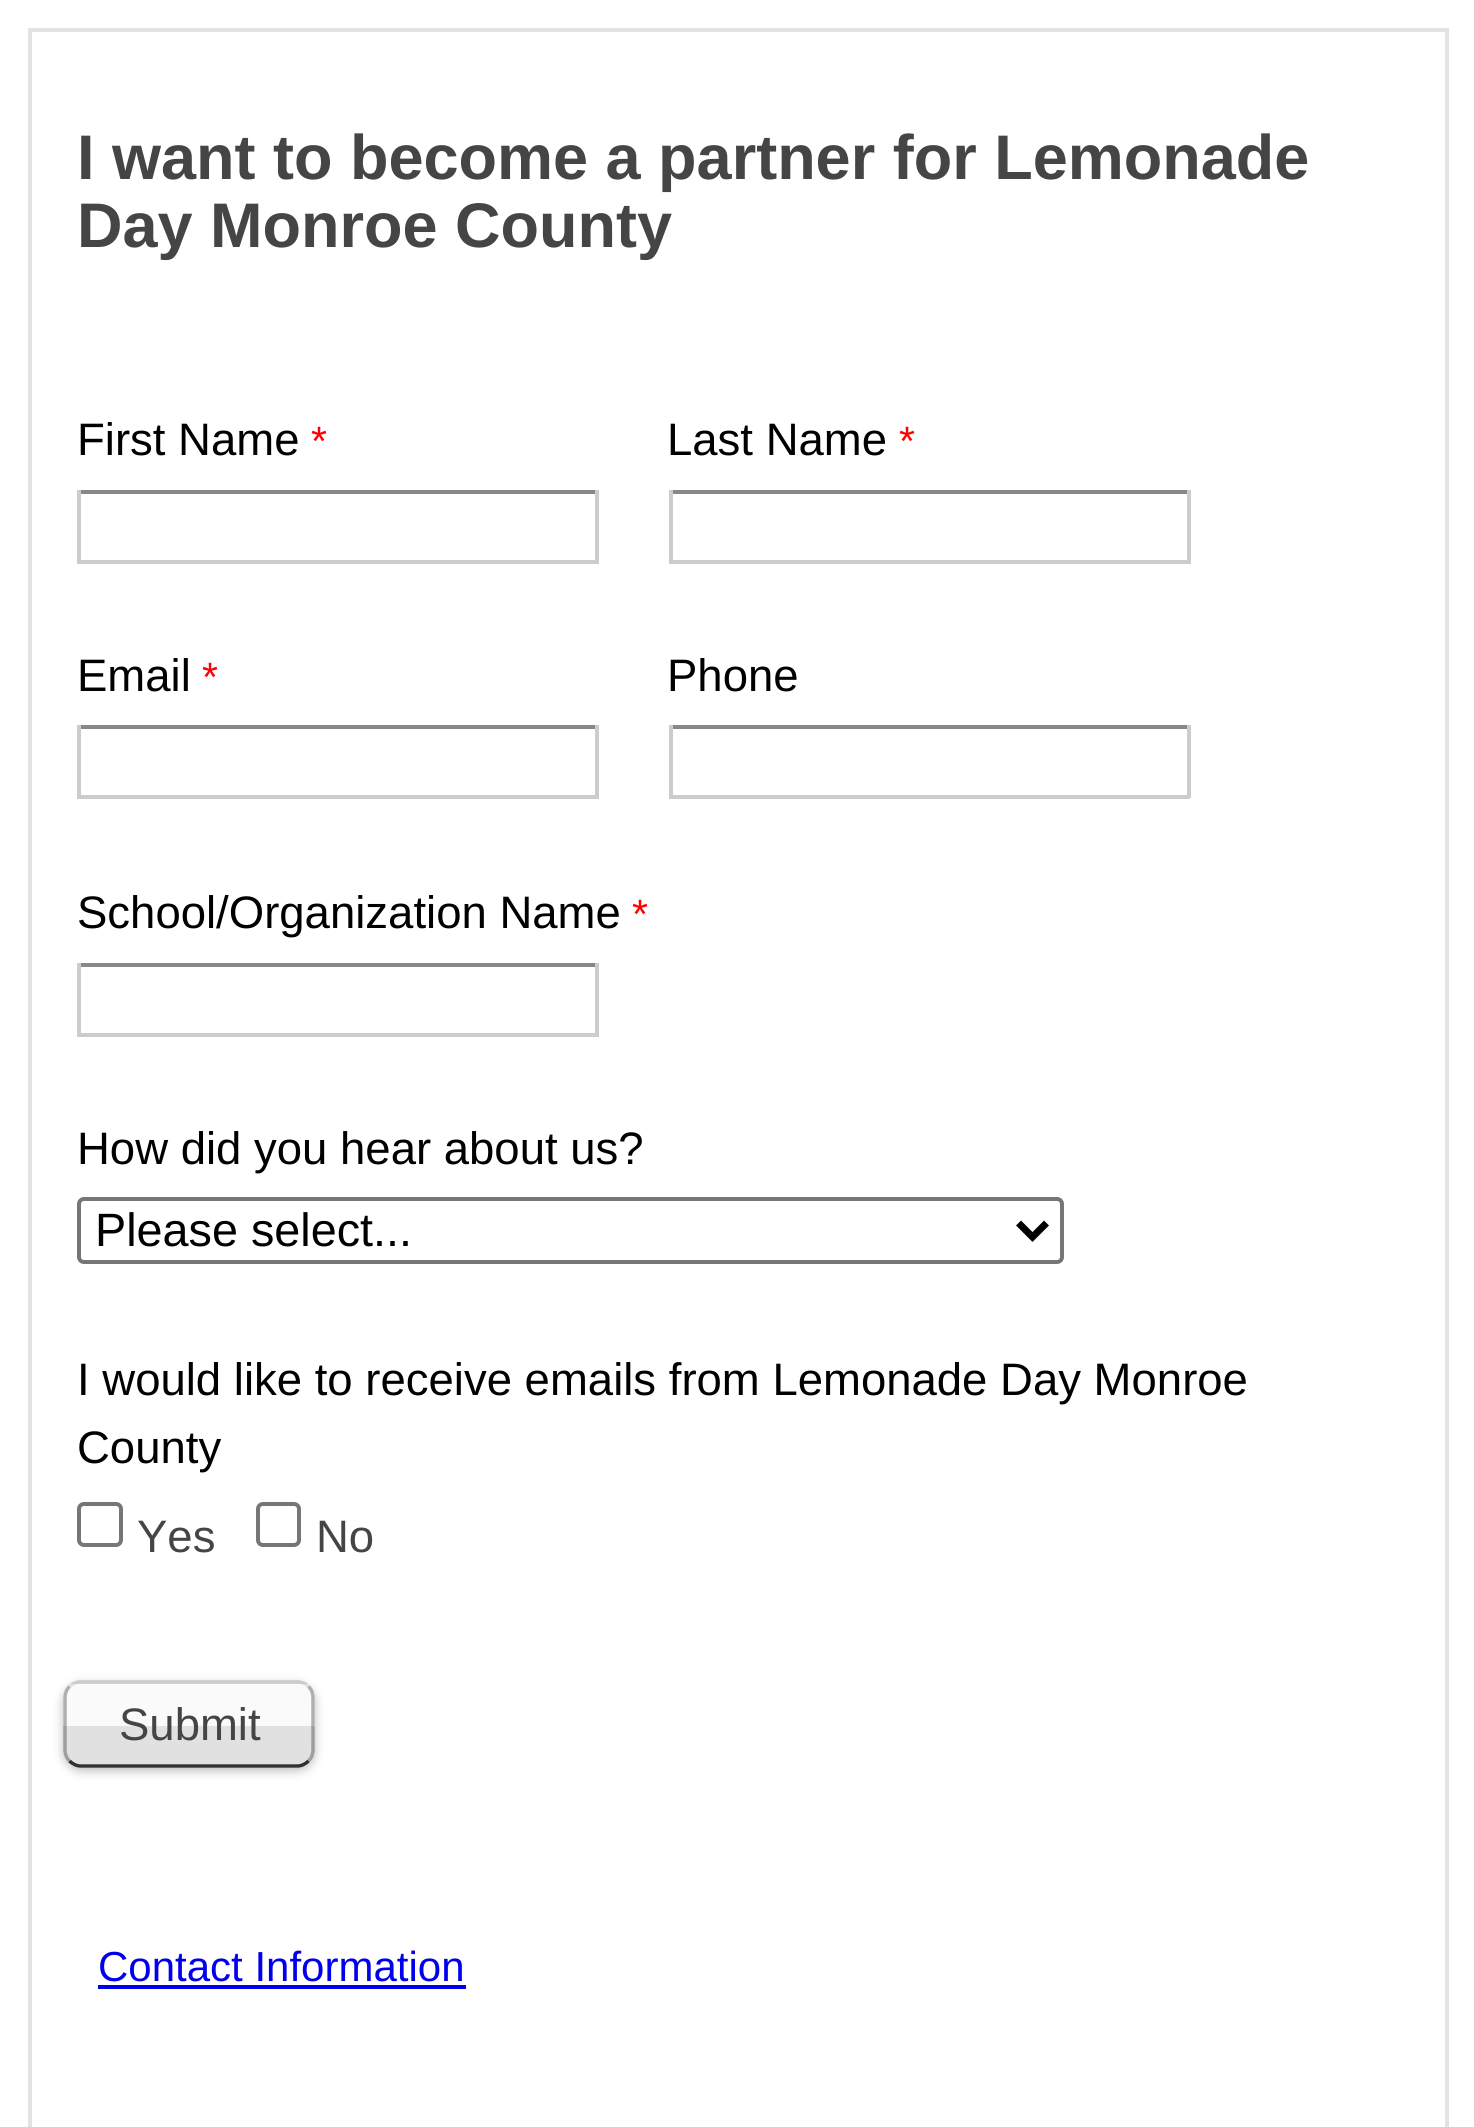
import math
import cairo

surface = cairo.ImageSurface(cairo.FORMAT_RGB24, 1474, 2127)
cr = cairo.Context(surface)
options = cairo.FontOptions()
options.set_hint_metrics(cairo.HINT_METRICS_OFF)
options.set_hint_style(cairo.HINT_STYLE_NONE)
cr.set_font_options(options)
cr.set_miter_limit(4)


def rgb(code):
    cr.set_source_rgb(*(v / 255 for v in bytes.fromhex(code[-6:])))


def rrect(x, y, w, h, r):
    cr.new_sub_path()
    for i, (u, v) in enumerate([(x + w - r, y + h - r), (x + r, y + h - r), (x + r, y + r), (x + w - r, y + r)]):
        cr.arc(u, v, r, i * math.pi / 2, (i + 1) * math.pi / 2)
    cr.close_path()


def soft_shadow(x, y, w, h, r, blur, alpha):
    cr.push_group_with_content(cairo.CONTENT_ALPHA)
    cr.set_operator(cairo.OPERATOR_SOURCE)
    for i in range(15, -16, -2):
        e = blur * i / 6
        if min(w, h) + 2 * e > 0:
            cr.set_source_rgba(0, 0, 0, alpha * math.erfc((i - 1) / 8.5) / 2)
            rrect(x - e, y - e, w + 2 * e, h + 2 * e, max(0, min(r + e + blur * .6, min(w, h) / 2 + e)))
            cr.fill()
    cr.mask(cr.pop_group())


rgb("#ffffff")
cr.paint()
cr.rectangle(30, 30, 1417, 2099)
rgb("#e3e3e3")
cr.set_line_width(4)
cr.stroke()
for x, y, w, h, color in [
    (77, 490, 522, 4, "#888888"),
    (595, 490, 4, 74, "#cccccc"),
    (77, 560, 522, 4, "#cccccc"),
    (77, 490, 4, 74, "#cccccc"),
    (669, 490, 521, 4, "#888888"),
    (1187, 490, 4, 74, "#cccccc"),
    (669, 560, 521, 4, "#cccccc"),
    (669, 490, 4, 74, "#cccccc"),
    (77, 725, 522, 4, "#888888"),
    (595, 725, 4, 73, "#cccccc"),
    (77, 795, 522, 4, "#cccccc"),
    (77, 725, 4, 73, "#cccccc"),
    (669, 725, 521, 4, "#888888"),
    (1187, 725, 4, 73, "#cccccc"),
    (669, 795, 521, 4, "#cccccc"),
    (669, 725, 4, 73, "#cccccc"),
    (77, 963, 522, 4, "#888888"),
    (595, 963, 4, 73, "#cccccc"),
    (77, 1033, 522, 4, "#cccccc"),
    (77, 963, 4, 73, "#cccccc"),
]:
    rgb(color)
    cr.rectangle(x, y, w, h)
    cr.fill()
rrect(79, 1199, 983, 63, 5)
rgb("#767676")
cr.stroke()
cr.new_path()
cr.move_to(1018.5, 1223)
cr.line_to(1032.5, 1237)
cr.line_to(1046.5, 1223)
rgb("#000000")
cr.set_line_width(7)
cr.stroke()
rrect(79, 1504, 42, 41, 5)
rgb("#767676")
cr.set_line_width(4)
cr.stroke()
rrect(258, 1504, 41, 41, 5)
cr.stroke()
rgb("#000000")
soft_shadow(63, 1684, 252, 87, 18, 5, 0.25)
rgb("#fafafa")
rrect(63, 1680, 252, 88, 18)
cr.fill()
cr.save()
rrect(63, 1680, 252, 88, 18)
cr.clip()
rgb("#e1e1e1")
cr.rectangle(63, 1680, 252, 4)
cr.fill()
cr.set_source_rgba(0, 0, 0, 0.1)
cr.rectangle(63, 1726, 252, 38)
cr.fill()
cr.restore()
cr.new_path()
cr.move_to(69.5, 1686.5)
cr.curve_to(72.5, 1683.5, 76.5, 1682, 80.5, 1682)
cr.line_to(297.5, 1682)
cr.curve_to(301.5, 1682, 305.5, 1683.5, 308.5, 1686.5)
cr.set_source_rgba(0, 0, 0, 0.1)
cr.set_line_width(3.5)
cr.stroke()
cr.new_path()
cr.move_to(308.5, 1686.5)
cr.curve_to(311.5, 1689.5, 313, 1693.5, 313, 1697.5)
cr.line_to(313, 1750)
cr.curve_to(313, 1754, 311.5, 1758, 308.5, 1761)
cr.set_source_rgba(0, 0, 0, 0.3)
cr.stroke()
cr.new_path()
cr.move_to(308.5, 1761)
cr.curve_to(305.5, 1764, 301.5, 1766, 297.5, 1766)
cr.line_to(80.5, 1766)
cr.curve_to(76.5, 1766, 72.5, 1764, 69.5, 1761)
cr.set_source_rgba(0, 0, 0, 0.8)
cr.stroke()
cr.new_path()
cr.move_to(69.5, 1761)
cr.curve_to(66.5, 1758, 65, 1754, 65, 1750)
cr.line_to(65, 1697.5)
cr.curve_to(65, 1693.5, 66.5, 1689.5, 69.5, 1686.5)
cr.set_source_rgba(0, 0, 0, 0.3)
cr.stroke()
rgb("#0000ee")
cr.rectangle(98, 1985, 368, 4)
cr.fill()
cr.select_font_face("Liberation Sans", cairo.FONT_SLANT_NORMAL, cairo.FONT_WEIGHT_BOLD)
cr.set_font_size(63)
rgb("#454545")
cr.move_to(77, 179)
cr.show_text("I want to become a partner for Lemonade")
cr.move_to(77, 247)
cr.show_text("Day Monroe County")
cr.select_font_face("Liberation Sans")
cr.set_font_size(45.5)
rgb("#000000")
cr.move_to(77, 455)
cr.show_text("First Name")
cr.set_font_size(41)
rgb("#ff0000")
cr.move_to(311, 455)
cr.show_text("*")
cr.set_font_size(45.5)
rgb("#000000")
cr.move_to(667, 455)
cr.show_text("Last Name")
cr.set_font_size(41)
rgb("#ff0000")
cr.move_to(899, 455)
cr.show_text("*")
cr.set_font_size(45.5)
rgb("#000000")
cr.move_to(77, 691)
cr.show_text("Email")
cr.set_font_size(41)
rgb("#ff0000")
cr.move_to(202, 691)
cr.show_text("*")
cr.set_font_size(45.5)
rgb("#000000")
cr.move_to(667, 691)
cr.show_text("Phone")
cr.move_to(77, 928)
cr.show_text("School/Organization Name")
cr.set_font_size(41)
rgb("#ff0000")
cr.move_to(632, 928)
cr.show_text("*")
cr.set_font_size(45.5)
rgb("#000000")
cr.move_to(77, 1164)
cr.show_text("How did you hear about us?")
cr.set_font_size(46.75)
cr.move_to(95, 1246)
cr.show_text("Please select...")
cr.set_font_size(45.5)
cr.move_to(77, 1395)
cr.show_text("I would like to receive emails from Lemonade Day Monroe")
cr.move_to(77, 1463)
cr.show_text("County")
rgb("#454545")
for x, y, s in [
    (137, 1552, "Yes"),
    (316, 1552, "No"),
    (119, 1740, "Submit"),
]:
    cr.move_to(x, y)
    cr.show_text(s)
cr.set_font_size(42)
rgb("#0000ee")
cr.move_to(98, 1981)
cr.show_text("Contact Information")
surface.write_to_png("page.png")
